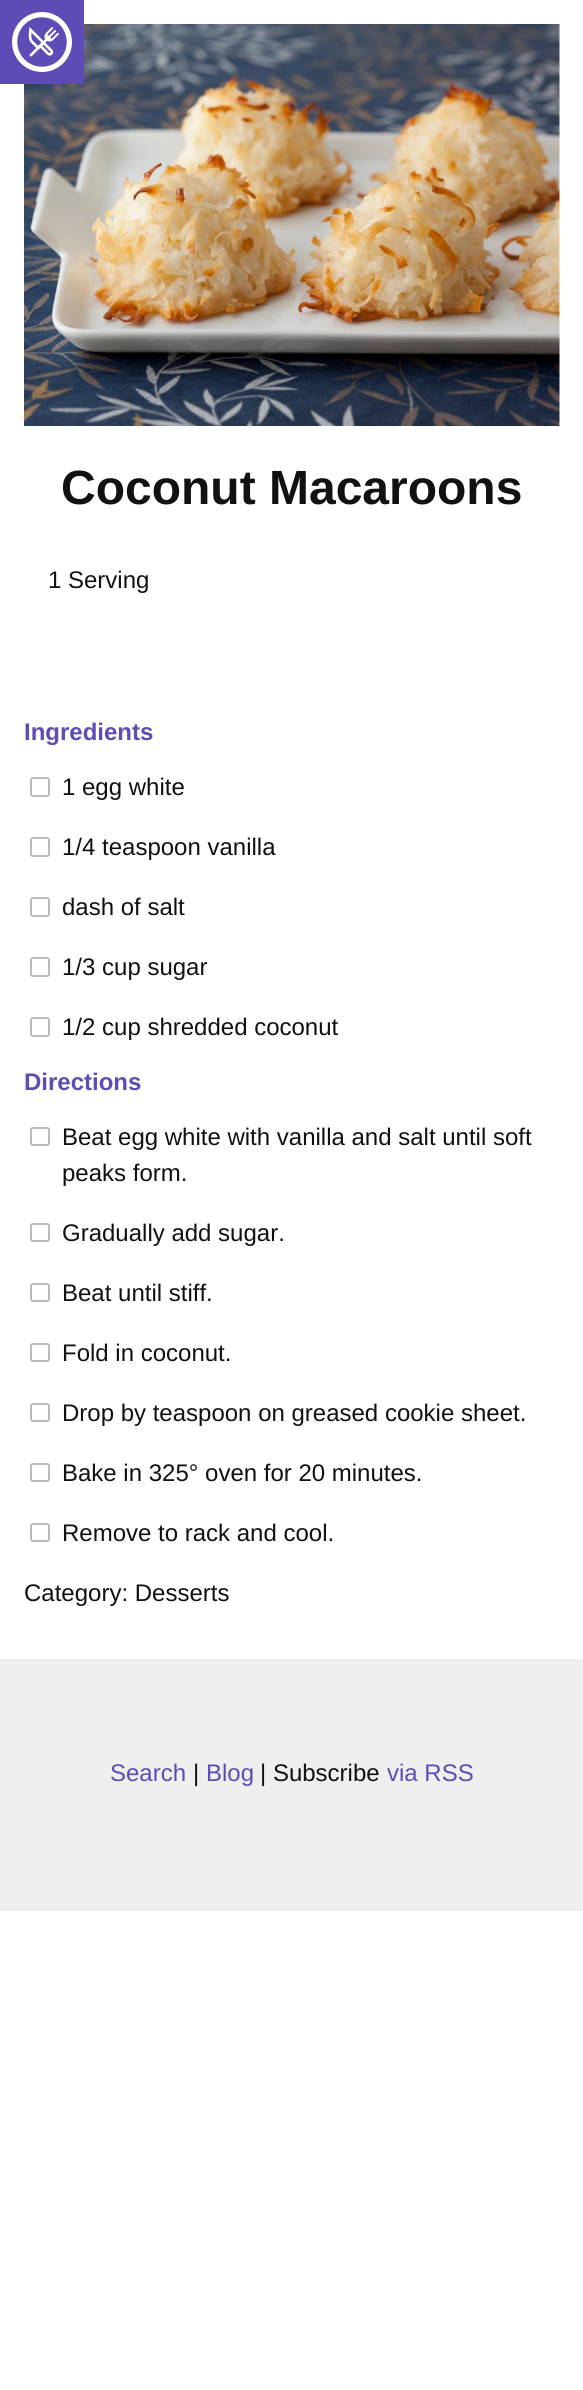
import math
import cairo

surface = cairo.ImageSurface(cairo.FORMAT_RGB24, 583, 2390)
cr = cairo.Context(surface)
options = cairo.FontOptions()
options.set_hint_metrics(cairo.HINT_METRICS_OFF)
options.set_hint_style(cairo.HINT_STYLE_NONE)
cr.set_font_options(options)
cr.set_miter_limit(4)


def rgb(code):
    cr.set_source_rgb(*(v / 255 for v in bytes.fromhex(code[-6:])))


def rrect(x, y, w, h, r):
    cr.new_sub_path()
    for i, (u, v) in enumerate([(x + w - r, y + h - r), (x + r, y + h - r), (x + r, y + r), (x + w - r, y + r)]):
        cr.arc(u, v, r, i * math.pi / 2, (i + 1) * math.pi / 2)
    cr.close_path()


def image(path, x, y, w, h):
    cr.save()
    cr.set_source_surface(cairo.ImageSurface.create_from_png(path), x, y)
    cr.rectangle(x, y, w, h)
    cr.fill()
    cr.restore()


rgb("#ffffff")
cr.paint()
image("img/2.png", 24, 24, 536, 402)
rgb("#5f4bb6")
cr.rectangle(0, 0, 84, 84)
cr.fill()
image("img/1.png", 12, 12, 60, 60)
rrect(31, 778, 18, 18, 2)
rgb("#bbbbbb")
cr.stroke()
rrect(31, 838, 18, 18, 2)
cr.stroke()
rrect(31, 898, 18, 18, 2)
cr.stroke()
rrect(31, 958, 18, 18, 2)
cr.stroke()
rrect(31, 1018, 18, 18, 2)
cr.stroke()
rrect(31, 1128, 18, 17, 2)
cr.stroke()
rrect(31, 1224, 18, 17, 2)
cr.stroke()
rrect(31, 1284, 18, 17, 2)
cr.stroke()
rrect(31, 1344, 18, 17, 2)
cr.stroke()
rrect(31, 1404, 18, 17, 2)
cr.stroke()
rrect(31, 1464, 18, 17, 2)
cr.stroke()
rrect(31, 1524, 18, 17, 2)
cr.stroke()
rgb("#efefef")
cr.rectangle(0, 1659, 583, 252)
cr.fill()
cr.select_font_face("Liberation Sans", cairo.FONT_SLANT_NORMAL, cairo.FONT_WEIGHT_BOLD)
cr.set_font_size(48)
rgb("#111111")
cr.move_to(61, 504)
cr.show_text("Coconut Macaroons")
cr.select_font_face("Liberation Sans")
cr.set_font_size(24)
cr.move_to(48, 588)
cr.show_text("1 Serving")
cr.select_font_face("Liberation Sans", cairo.FONT_SLANT_NORMAL, cairo.FONT_WEIGHT_BOLD)
rgb("#5f4bb6")
cr.move_to(24, 740)
cr.show_text("Ingredients")
cr.select_font_face("Liberation Sans")
rgb("#111111")
for x, y, s in [
    (62, 795, "1 egg white"),
    (62, 855, "1/4 teaspoon vanilla"),
    (62, 915, "dash of salt"),
    (62, 975, "1/3 cup sugar"),
    (62, 1035, "1/2 cup shredded coconut"),
]:
    cr.move_to(x, y)
    cr.show_text(s)
cr.select_font_face("Liberation Sans", cairo.FONT_SLANT_NORMAL, cairo.FONT_WEIGHT_BOLD)
rgb("#5f4bb6")
cr.move_to(24, 1090)
cr.show_text("Directions")
cr.select_font_face("Liberation Sans")
rgb("#111111")
for x, y, s in [
    (62, 1145, "Beat egg white with vanilla and salt until soft"),
    (62, 1181, "peaks form."),
    (62, 1241, "Gradually add sugar."),
    (62, 1301, "Beat until stiff."),
    (62, 1361, "Fold in coconut."),
    (62, 1421, "Drop by teaspoon on greased cookie sheet."),
    (62, 1481, "Bake in 325° oven for 20 minutes."),
    (62, 1541, "Remove to rack and cool."),
    (24, 1601, "Category: Desserts"),
]:
    cr.move_to(x, y)
    cr.show_text(s)
rgb("#5f4bb6")
cr.move_to(110, 1781)
cr.show_text("Search")
rgb("#111111")
cr.move_to(193, 1781)
cr.show_text("|")
rgb("#5f4bb6")
cr.move_to(206, 1781)
cr.show_text("Blog")
rgb("#111111")
cr.move_to(260, 1781)
cr.show_text("| Subscribe")
rgb("#5f4bb6")
cr.move_to(387, 1781)
cr.show_text("via RSS")
surface.write_to_png("page.png")
